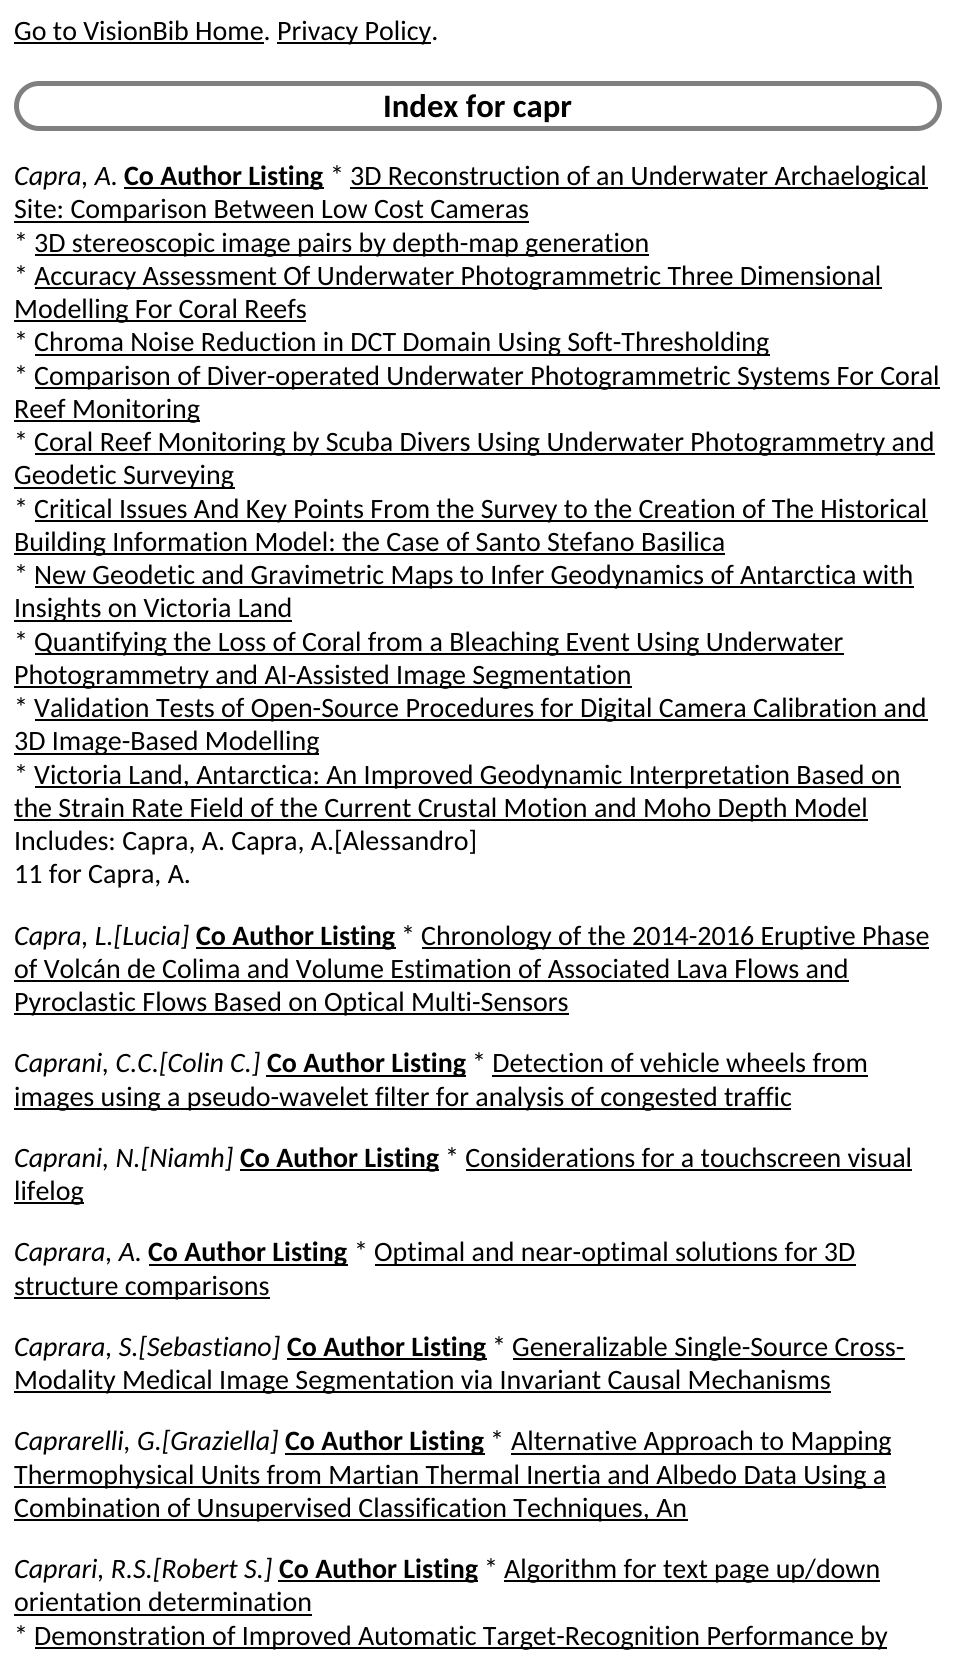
import math
import cairo

surface = cairo.ImageSurface(cairo.FORMAT_RGB24, 954, 1654)
cr = cairo.Context(surface)
options = cairo.FontOptions()
options.set_hint_metrics(cairo.HINT_METRICS_OFF)
options.set_hint_style(cairo.HINT_STYLE_NONE)
cr.set_font_options(options)
cr.set_miter_limit(4)


def rgb(code):
    cr.set_source_rgb(*(v / 255 for v in bytes.fromhex(code[-6:])))


def rrect(x, y, w, h, r):
    cr.new_sub_path()
    for i, (u, v) in enumerate([(x + w - r, y + h - r), (x + r, y + h - r), (x + r, y + r), (x + w - r, y + r)]):
        cr.arc(u, v, r, i * math.pi / 2, (i + 1) * math.pi / 2)
    cr.close_path()


rgb("#ffffff")
cr.paint()
rgb("#000000")
cr.rectangle(14, 42, 250, 2)
cr.fill()
cr.rectangle(277, 42, 154, 2)
cr.fill()
rrect(16.5, 83.5, 923, 45, 22.5)
rgb("#808080")
cr.set_line_width(5)
cr.stroke()
for x, y, w, h, color in [
    (124, 187, 200, 2, "#000000"),
    (350, 187, 578, 2, "#000000"),
    (14, 221, 515, 2, "#000000"),
    (35, 254, 614, 2, "#000000"),
    (35, 287, 847, 2, "#000000"),
    (14, 320, 292, 2, "#000000"),
    (35, 354, 735, 2, "#000000"),
    (35, 387, 905, 2, "#000000"),
    (14, 420, 186, 2, "#000000"),
    (35, 453, 900, 2, "#000000"),
    (14, 487, 221, 2, "#000000"),
    (35, 520, 893, 2, "#000000"),
    (14, 553, 711, 2, "#000000"),
    (35, 586, 879, 2, "#000000"),
    (14, 620, 278, 2, "#000000"),
    (35, 653, 809, 2, "#000000"),
    (14, 686, 618, 2, "#000000"),
    (35, 719, 893, 2, "#000000"),
    (14, 753, 305, 2, "#000000"),
    (35, 786, 866, 2, "#000000"),
    (14, 819, 854, 2, "#000000"),
    (196, 947, 200, 2, "#000000"),
    (422, 947, 507, 2, "#000000"),
    (14, 980, 835, 2, "#000000"),
    (14, 1013, 555, 2, "#000000"),
    (266, 1075, 200, 2, "#000000"),
    (492, 1075, 376, 2, "#000000"),
    (14, 1108, 777, 2, "#000000"),
    (240, 1169, 199, 2, "#000000"),
    (466, 1169, 446, 2, "#000000"),
    (14, 1202, 70, 2, "#000000"),
    (149, 1264, 199, 2, "#000000"),
    (375, 1264, 481, 2, "#000000"),
    (14, 1297, 256, 2, "#000000"),
    (287, 1358, 200, 2, "#000000"),
    (513, 1358, 392, 2, "#000000"),
    (14, 1391, 817, 2, "#000000"),
    (285, 1453, 200, 2, "#000000"),
    (511, 1453, 380, 2, "#000000"),
    (14, 1486, 872, 2, "#000000"),
    (14, 1519, 674, 2, "#000000"),
    (278, 1580, 200, 2, "#000000"),
    (504, 1580, 376, 2, "#000000"),
    (14, 1614, 298, 2, "#000000"),
    (35, 1647, 852, 2, "#000000"),
]:
    rgb(color)
    cr.rectangle(x, y, w, h)
    cr.fill()
cr.select_font_face("Carlito")
cr.set_font_size(28)
cr.move_to(14, 40)
cr.show_text("Go to VisionBib Home.")
cr.move_to(277, 40)
cr.show_text("Privacy Policy.")
cr.select_font_face("Carlito", cairo.FONT_SLANT_NORMAL, cairo.FONT_WEIGHT_BOLD)
cr.set_font_size(32.75)
cr.move_to(383, 117)
cr.show_text("Index for capr")
cr.select_font_face("Carlito", cairo.FONT_SLANT_ITALIC)
cr.set_font_size(28)
cr.move_to(14, 185)
cr.show_text("Capra, A.")
cr.select_font_face("Carlito", cairo.FONT_SLANT_NORMAL, cairo.FONT_WEIGHT_BOLD)
cr.move_to(124, 185)
cr.show_text("Co Author Listing")
cr.select_font_face("Carlito")
for x, y, s in [
    (330, 185, "*"),
    (350, 185, "3D Reconstruction of an Underwater Archaelogical"),
    (14, 218, "Site: Comparison Between Low Cost Cameras"),
    (14, 252, "*"),
    (34, 252, "3D stereoscopic image pairs by depth-map generation"),
    (14, 285, "*"),
    (34, 285, "Accuracy Assessment Of Underwater Photogrammetric Three Dimensional"),
    (14, 318, "Modelling For Coral Reefs"),
    (14, 351, "*"),
    (34, 351, "Chroma Noise Reduction in DCT Domain Using Soft-Thresholding"),
    (14, 385, "*"),
    (34, 385, "Comparison of Diver-operated Underwater Photogrammetric Systems For Coral"),
    (14, 418, "Reef Monitoring"),
    (14, 451, "*"),
    (34, 451, "Coral Reef Monitoring by Scuba Divers Using Underwater Photogrammetry and"),
    (14, 484, "Geodetic Surveying"),
    (14, 518, "*"),
    (34, 518, "Critical Issues And Key Points From the Survey to the Creation of The Historical"),
    (14, 551, "Building Information Model: the Case of Santo Stefano Basilica"),
    (14, 584, "*"),
    (34, 584, "New Geodetic and Gravimetric Maps to Infer Geodynamics of Antarctica with"),
    (14, 617, "Insights on Victoria Land"),
    (14, 651, "*"),
    (34, 651, "Quantifying the Loss of Coral from a Bleaching Event Using Underwater"),
    (14, 684, "Photogrammetry and AI-Assisted Image Segmentation"),
    (14, 717, "*"),
    (34, 717, "Validation Tests of Open-Source Procedures for Digital Camera Calibration and"),
    (14, 750, "3D Image-Based Modelling"),
    (14, 784, "*"),
    (34, 784, "Victoria Land, Antarctica: An Improved Geodynamic Interpretation Based on"),
    (14, 817, "the Strain Rate Field of the Current Crustal Motion and Moho Depth Model"),
    (14, 850, "Includes: Capra, A. Capra, A.[Alessandro]"),
    (14, 883, "11 for Capra, A."),
]:
    cr.move_to(x, y)
    cr.show_text(s)
cr.select_font_face("Carlito", cairo.FONT_SLANT_ITALIC)
cr.move_to(14, 945)
cr.show_text("Capra, L.[Lucia]")
cr.select_font_face("Carlito", cairo.FONT_SLANT_NORMAL, cairo.FONT_WEIGHT_BOLD)
cr.move_to(196, 945)
cr.show_text("Co Author Listing")
cr.select_font_face("Carlito")
for x, y, s in [
    (401, 945, "*"),
    (421, 945, "Chronology of the 2014-2016 Eruptive Phase"),
    (14, 978, "of Volcán de Colima and Volume Estimation of Associated Lava Flows and"),
    (14, 1011, "Pyroclastic Flows Based on Optical Multi-Sensors"),
]:
    cr.move_to(x, y)
    cr.show_text(s)
cr.select_font_face("Carlito", cairo.FONT_SLANT_ITALIC)
cr.move_to(14, 1072)
cr.show_text("Caprani, C.C.[Colin C.]")
cr.select_font_face("Carlito", cairo.FONT_SLANT_NORMAL, cairo.FONT_WEIGHT_BOLD)
cr.move_to(267, 1072)
cr.show_text("Co Author Listing")
cr.select_font_face("Carlito")
cr.move_to(472, 1072)
cr.show_text("* Detection of vehicle wheels from")
cr.move_to(14, 1106)
cr.show_text("images using a pseudo-wavelet filter for analysis of congested traffic")
cr.select_font_face("Carlito", cairo.FONT_SLANT_ITALIC)
cr.move_to(14, 1167)
cr.show_text("Caprani, N.[Niamh]")
cr.select_font_face("Carlito", cairo.FONT_SLANT_NORMAL, cairo.FONT_WEIGHT_BOLD)
cr.move_to(240, 1167)
cr.show_text("Co Author Listing")
cr.select_font_face("Carlito")
cr.move_to(445, 1167)
cr.show_text("* Considerations for a touchscreen visual")
cr.move_to(14, 1200)
cr.show_text("lifelog")
cr.select_font_face("Carlito", cairo.FONT_SLANT_ITALIC)
cr.move_to(14, 1261)
cr.show_text("Caprara, A.")
cr.select_font_face("Carlito", cairo.FONT_SLANT_NORMAL, cairo.FONT_WEIGHT_BOLD)
cr.move_to(148, 1261)
cr.show_text("Co Author Listing")
cr.select_font_face("Carlito")
for x, y, s in [
    (354, 1261, "*"),
    (374, 1261, "Optimal and near-optimal solutions for 3D"),
    (14, 1295, "structure comparisons"),
]:
    cr.move_to(x, y)
    cr.show_text(s)
cr.select_font_face("Carlito", cairo.FONT_SLANT_ITALIC)
cr.move_to(14, 1356)
cr.show_text("Caprara, S.[Sebastiano]")
cr.select_font_face("Carlito", cairo.FONT_SLANT_NORMAL, cairo.FONT_WEIGHT_BOLD)
cr.move_to(287, 1356)
cr.show_text("Co Author Listing")
cr.select_font_face("Carlito")
for x, y, s in [
    (492, 1356, "*"),
    (512, 1356, "Generalizable Single-Source Cross-"),
    (14, 1389, "Modality Medical Image Segmentation via Invariant Causal Mechanisms"),
]:
    cr.move_to(x, y)
    cr.show_text(s)
cr.select_font_face("Carlito", cairo.FONT_SLANT_ITALIC)
cr.move_to(14, 1450)
cr.show_text("Caprarelli, G.[Graziella]")
cr.select_font_face("Carlito", cairo.FONT_SLANT_NORMAL, cairo.FONT_WEIGHT_BOLD)
cr.move_to(285, 1450)
cr.show_text("Co Author Listing")
cr.select_font_face("Carlito")
for x, y, s in [
    (490, 1450, "*"),
    (511, 1450, "Alternative Approach to Mapping"),
    (14, 1484, "Thermophysical Units from Martian Thermal Inertia and Albedo Data Using a"),
    (14, 1517, "Combination of Unsupervised Classification Techniques, An"),
]:
    cr.move_to(x, y)
    cr.show_text(s)
cr.select_font_face("Carlito", cairo.FONT_SLANT_ITALIC)
cr.move_to(14, 1578)
cr.show_text("Caprari, R.S.[Robert S.]")
cr.select_font_face("Carlito", cairo.FONT_SLANT_NORMAL, cairo.FONT_WEIGHT_BOLD)
cr.move_to(279, 1578)
cr.show_text("Co Author Listing")
cr.select_font_face("Carlito")
for x, y, s in [
    (484, 1578, "*"),
    (504, 1578, "Algorithm for text page up/down"),
    (14, 1611, "orientation determination"),
    (14, 1645, "*"),
    (34, 1645, "Demonstration of Improved Automatic Target-Recognition Performance by"),
]:
    cr.move_to(x, y)
    cr.show_text(s)
surface.write_to_png("page.png")
